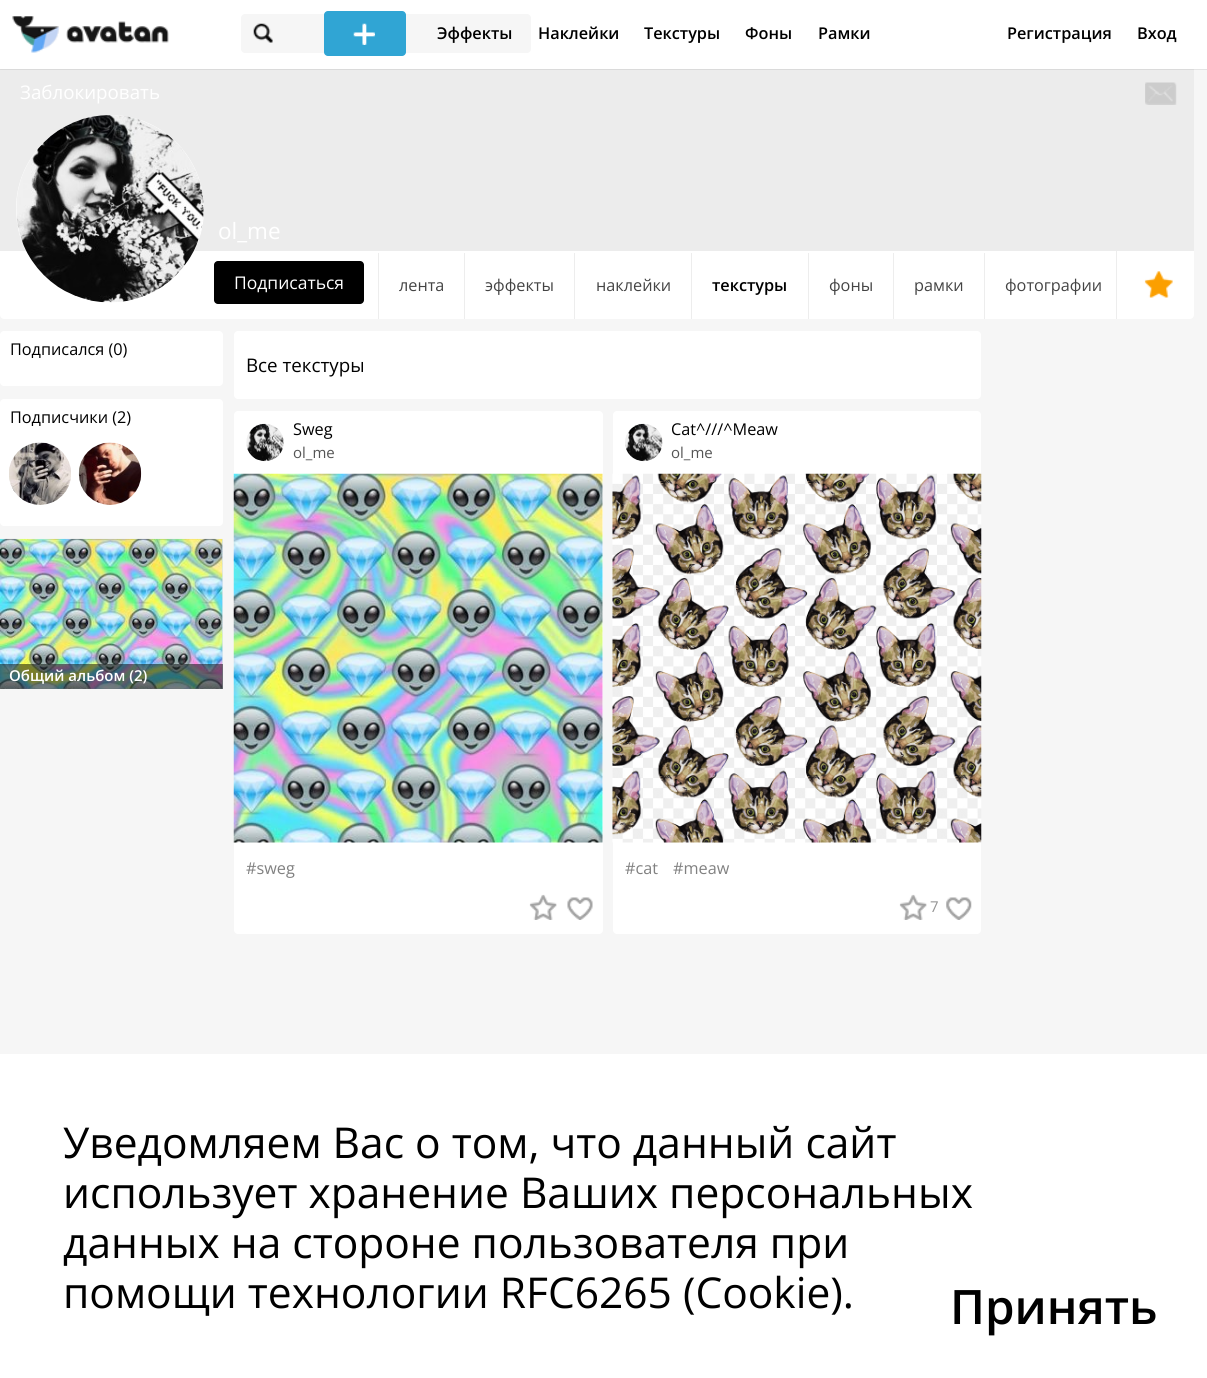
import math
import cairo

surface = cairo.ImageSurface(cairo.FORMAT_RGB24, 1207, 1378)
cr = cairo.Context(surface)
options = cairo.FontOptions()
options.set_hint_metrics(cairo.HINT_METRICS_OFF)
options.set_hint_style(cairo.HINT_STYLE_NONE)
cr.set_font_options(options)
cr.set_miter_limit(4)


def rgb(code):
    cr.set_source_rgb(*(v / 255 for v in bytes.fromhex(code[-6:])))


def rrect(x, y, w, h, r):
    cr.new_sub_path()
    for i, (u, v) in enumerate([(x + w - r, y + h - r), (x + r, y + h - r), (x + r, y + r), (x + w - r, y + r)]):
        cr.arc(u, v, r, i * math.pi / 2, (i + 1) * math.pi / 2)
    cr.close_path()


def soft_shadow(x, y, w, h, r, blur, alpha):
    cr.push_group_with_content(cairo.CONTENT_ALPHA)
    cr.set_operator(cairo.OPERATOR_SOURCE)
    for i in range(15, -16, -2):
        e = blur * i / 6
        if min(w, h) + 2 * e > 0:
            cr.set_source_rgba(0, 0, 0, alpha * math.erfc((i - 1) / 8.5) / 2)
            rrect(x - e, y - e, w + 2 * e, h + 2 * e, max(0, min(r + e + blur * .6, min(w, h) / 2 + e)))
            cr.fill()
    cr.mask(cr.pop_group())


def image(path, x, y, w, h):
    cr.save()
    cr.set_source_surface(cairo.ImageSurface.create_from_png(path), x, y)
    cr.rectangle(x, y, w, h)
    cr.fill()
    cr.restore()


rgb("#f6f6f6")
cr.paint()
rgb("#ececec")
cr.rectangle(0, 69, 1194, 182)
cr.fill()
rgb("#000000")
soft_shadow(0, 0, 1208, 69, 0, 0.5, 0.3)
rgb("#ffffff")
cr.rectangle(0, 0, 1207, 69)
cr.fill()
image("img/1.png", 12, 16, 157, 37)
rgb("#f6f6f6")
rrect(241, 14, 290, 39, 4)
cr.fill()
image("img/2.png", 253, 23, 20, 20)
rgb("#30a5d4")
rrect(324, 11, 82, 45, 4)
cr.fill()
image("img/3.png", 353, 23, 22, 22)
image("img/4.png", 1145, 82, 32, 23)
rgb("#ffffff")
cr.new_path()
cr.move_to(0, 251)
cr.line_to(1194, 251)
cr.line_to(1194, 315)
cr.curve_to(1194, 317, 1192, 319, 1190, 319)
cr.line_to(4, 319)
cr.curve_to(2, 319, 0, 317, 0, 315)
cr.close_path()
cr.fill()
cr.arc(110, 209, 94, 0, 2 * math.pi)
cr.fill()
image("img/5.png", 16, 115, 188, 188)
rgb("#000000")
rrect(214, 261, 150, 43, 4)
cr.fill()
for x, y, w, h, color in [
    (378, 253, 1, 66, "#ededed"),
    (464, 253, 1, 66, "#ededed"),
    (574, 253, 1, 66, "#ededed"),
    (691, 253, 1, 66, "#ededed"),
    (808, 253, 1, 66, "#ededed"),
    (893, 253, 1, 66, "#ededed"),
    (984, 253, 1, 66, "#ededed"),
    (1116, 251, 1, 68, "#ededed"),
]:
    rgb(color)
    cr.rectangle(x, y, w, h)
    cr.fill()
image("img/6.png", 1144, 271, 29, 27)
rgb("#ffffff")
rrect(0, 331, 223, 55, 4)
cr.fill()
rrect(0, 399, 223, 127, 4)
cr.fill()
image("img/7.png", 9, 442, 62, 63)
image("img/8.png", 78, 442, 64, 63)
rgb("#d8e5ed")
cr.rectangle(0, 539, 223, 150)
cr.fill()
image("img/9.png", 0, 538, 223, 151)
cr.set_source_rgba(0, 0, 0, 0.5)
cr.rectangle(0, 664, 223, 25)
cr.fill()
rgb("#ffffff")
rrect(234, 331, 747, 68, 4)
cr.fill()
rrect(234, 411, 369, 523, 4)
cr.fill()
image("img/10.png", 246, 423, 38, 39)
image("img/11.png", 233, 473, 370, 370)
image("img/12.png", 529, 894, 28, 26)
image("img/13.png", 567, 897, 26, 23)
rrect(613, 411, 368, 523, 4)
cr.fill()
image("img/14.png", 625, 423, 38, 39)
image("img/15.png", 612, 473, 370, 370)
image("img/16.png", 899, 894, 28, 26)
image("img/17.png", 946, 897, 26, 23)
cr.rectangle(0, 1054, 1207, 324)
cr.fill()
cr.select_font_face("Open Sans SemiBold")
cr.set_font_size(16.25)
rgb("#000000")
for x, y, s in [
    (437, 39, "Эффекты"),
    (538, 39, "Наклейки"),
    (644, 39, "Текстуры"),
    (745, 39, "Фоны"),
    (818, 39, "Рамки"),
    (1007, 39, "Регистрация"),
    (1137, 39, "Вход"),
]:
    cr.move_to(x, y)
    cr.show_text(s)
cr.select_font_face("Open Sans")
cr.set_font_size(18.75)
rgb("#ffffff")
cr.move_to(20, 99)
cr.show_text("Заблокировать")
cr.set_font_size(22.5)
cr.move_to(218, 239)
cr.show_text("ol_me")
cr.set_font_size(17.5)
cr.move_to(234, 289)
cr.show_text("Подписаться")
cr.set_font_size(16.25)
rgb("#444444")
for x, y, s in [
    (399, 291, "лента"),
    (485, 291, "эффекты"),
    (596, 291, "наклейки"),
]:
    cr.move_to(x, y)
    cr.show_text(s)
cr.select_font_face("Open Sans SemiBold")
rgb("#000000")
cr.move_to(712, 291)
cr.show_text("текстуры")
cr.select_font_face("Open Sans")
rgb("#444444")
for x, y, s in [
    (829, 291, "фоны"),
    (914, 291, "рамки"),
    (1005, 291, "фотографии"),
]:
    cr.move_to(x, y)
    cr.show_text(s)
rgb("#000000")
cr.move_to(10, 355)
cr.show_text("Подписался (0)")
cr.move_to(10, 423)
cr.show_text("Подписчики (2)")
cr.select_font_face("Open Sans SemiBold")
cr.set_font_size(15)
rgb("#ffffff")
cr.move_to(9, 681)
cr.show_text("Общий альбом (2)")
cr.select_font_face("Open Sans")
cr.set_font_size(18.75)
rgb("#000000")
cr.move_to(246, 372)
cr.show_text("Все текстуры")
cr.set_font_size(16.25)
cr.move_to(293, 435)
cr.show_text("Sweg")
cr.set_font_size(15)
rgb("#555555")
cr.move_to(293, 458)
cr.show_text("ol_me")
cr.set_font_size(16.25)
rgb("#818181")
cr.move_to(246, 874)
cr.show_text("#sweg")
rgb("#000000")
cr.move_to(671, 435)
cr.show_text("Cat^///^Meaw")
cr.set_font_size(15)
rgb("#555555")
cr.move_to(671, 458)
cr.show_text("ol_me")
cr.set_font_size(16.25)
rgb("#818181")
cr.move_to(625, 874)
cr.show_text("#cat")
cr.move_to(673, 874)
cr.show_text("#meaw")
cr.set_font_size(15)
rgb("#959595")
cr.move_to(930, 912)
cr.show_text("7")
cr.set_font_size(42.5)
rgb("#000000")
for x, y, s in [
    (63, 1158, "Уведомляем Вас о том, что данный сайт"),
    (63, 1208, "использует хранение Ваших персональных"),
    (63, 1258, "данных на стороне пользователя при"),
    (63, 1308, "помощи технологии RFC6265 (Cookie)."),
]:
    cr.move_to(x, y)
    cr.show_text(s)
cr.select_font_face("Open Sans SemiBold")
cr.set_font_size(47.5)
cr.move_to(950, 1324)
cr.show_text("Принять")
surface.write_to_png("page.png")
